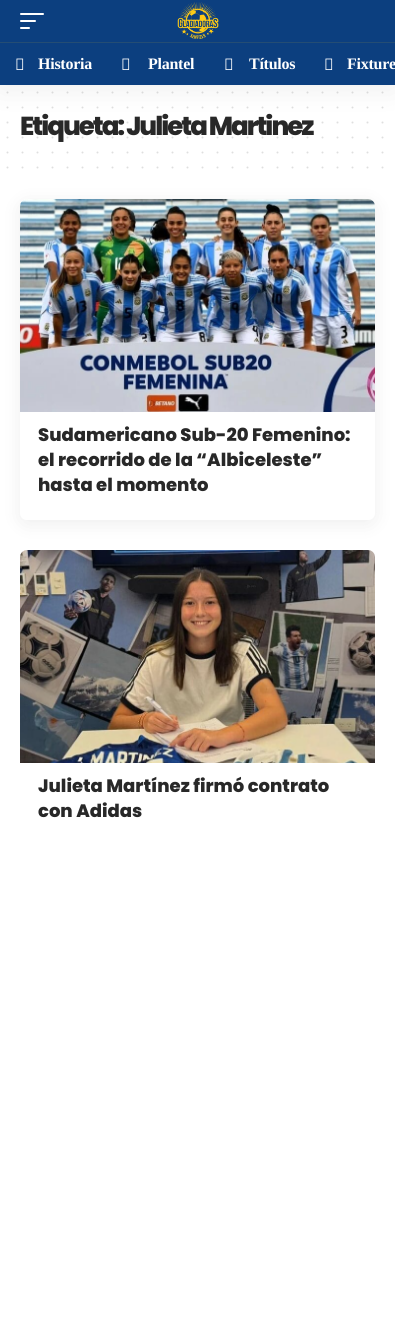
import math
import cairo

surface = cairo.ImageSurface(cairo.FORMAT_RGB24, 395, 1344)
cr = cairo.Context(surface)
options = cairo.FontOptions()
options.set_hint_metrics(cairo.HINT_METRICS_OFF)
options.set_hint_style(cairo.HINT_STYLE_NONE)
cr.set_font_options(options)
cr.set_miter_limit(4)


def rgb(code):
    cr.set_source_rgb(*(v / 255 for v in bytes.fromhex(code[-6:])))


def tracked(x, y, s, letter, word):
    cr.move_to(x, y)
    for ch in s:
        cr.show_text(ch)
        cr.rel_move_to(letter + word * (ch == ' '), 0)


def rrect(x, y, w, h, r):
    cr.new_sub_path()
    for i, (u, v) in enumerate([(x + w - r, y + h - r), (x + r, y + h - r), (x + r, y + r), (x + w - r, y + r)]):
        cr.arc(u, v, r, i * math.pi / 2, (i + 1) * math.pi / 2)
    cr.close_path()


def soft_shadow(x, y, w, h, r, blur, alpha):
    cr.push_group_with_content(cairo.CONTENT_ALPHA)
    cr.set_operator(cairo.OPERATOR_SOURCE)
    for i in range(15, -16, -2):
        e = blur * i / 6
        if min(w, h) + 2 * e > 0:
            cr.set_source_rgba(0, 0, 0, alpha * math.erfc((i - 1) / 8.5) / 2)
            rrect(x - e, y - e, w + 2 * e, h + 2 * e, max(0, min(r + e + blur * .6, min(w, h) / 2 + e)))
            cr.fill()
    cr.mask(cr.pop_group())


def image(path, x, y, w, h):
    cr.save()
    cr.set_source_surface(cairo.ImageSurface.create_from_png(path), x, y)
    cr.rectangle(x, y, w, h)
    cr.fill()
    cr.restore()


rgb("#ffffff")
cr.paint()
cr.new_path()
cr.move_to(7.5, 92.5)
cr.line_to(382.7, 92.5)
rgb("#dfdfdf")
cr.set_line_cap(cairo.LINE_CAP_ROUND)
cr.set_dash([0, 15])
cr.stroke()
cr.new_path()
cr.move_to(7.5, 107.5)
cr.line_to(382.7, 107.5)
cr.stroke()
cr.new_path()
cr.move_to(7.5, 152.5)
cr.line_to(382.7, 152.5)
cr.stroke()
cr.new_path()
cr.move_to(7.5, 167.5)
cr.line_to(382.7, 167.5)
cr.stroke()
cr.save()
cr.set_fill_rule(cairo.FILL_RULE_EVEN_ODD)
cr.new_path()
cr.move_to(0, 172)
cr.line_to(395, 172)
cr.line_to(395, 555)
cr.line_to(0, 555)
cr.close_path()
cr.move_to(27, 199)
cr.line_to(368, 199)
cr.curve_to(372, 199, 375, 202, 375, 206)
cr.line_to(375, 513)
cr.curve_to(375, 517, 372, 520, 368, 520)
cr.line_to(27, 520)
cr.curve_to(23, 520, 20, 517, 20, 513)
cr.line_to(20, 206)
cr.curve_to(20, 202, 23, 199, 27, 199)
cr.close_path()
cr.clip()
rgb("#000000")
soft_shadow(20, 203, 355, 321, 7, 10, 0.07)
cr.restore()
image("img/3.png", 20, 199, 355, 213)
image("img/4.png", 20, 550, 355, 213)
cr.select_font_face("Poppins ExtraBold")
cr.set_font_size(26)
rgb("#282828")
tracked(20, 135, "Etiqueta: Julieta Martinez", -2, 0)
cr.new_path()
cr.move_to(7.5, 122.5)
cr.line_to(382.7, 122.5)
cr.set_source_rgba(0.157, 0.157, 0.157, 0.15)
cr.stroke()
rgb("#000000")
soft_shadow(0, 4, 395, 85, 0, 15, 0.07)
rgb("#0c3f7f")
cr.rectangle(0, 0, 395, 85)
cr.fill()
cr.select_font_face("Liberation Serif", cairo.FONT_SLANT_NORMAL, cairo.FONT_WEIGHT_BOLD)
cr.set_font_size(16)
rgb("#ffffff")
tracked(347, 69, "Fixture", -0.25, 0)
image("img/2.png", 325, 58, 8, 12)
tracked(249, 69, "Títulos", -0.25, 0)
image("img/2.png", 225, 58, 8, 12)
tracked(148, 69, "Plantel", -0.25, 0)
image("img/2.png", 122, 58, 8, 12)
tracked(38, 69, "Historia", -0.25, 0)
image("img/2.png", 16, 58, 8, 12)
rgb("#244d74")
cr.rectangle(0, 42, 395, 1)
cr.fill()
rgb("#ffffff")
rrect(20, 27, 10, 2, 1)
cr.fill()
rrect(20, 20, 16, 2, 1)
cr.fill()
rrect(20, 13, 24, 2, 1)
cr.fill()
image("img/1.png", 177, 2, 42, 37)
cr.new_path()
cr.move_to(7.5, 137.5)
cr.line_to(382.7, 137.5)
rgb("#dfdfdf")
cr.stroke()
cr.select_font_face("Poppins ExtraBold")
cr.set_font_size(18)
rgb("#282828")
for x, y, s in [
    (38, 441, "Sudamericano Sub-20 Femenino:"),
    (38, 466, "el recorrido de la “Albiceleste”"),
    (38, 491, "hasta el momento"),
    (38, 792, "Julieta Martínez firmó contrato"),
    (38, 817, "con Adidas"),
]:
    cr.move_to(x, y)
    cr.show_text(s)
surface.write_to_png("page.png")
